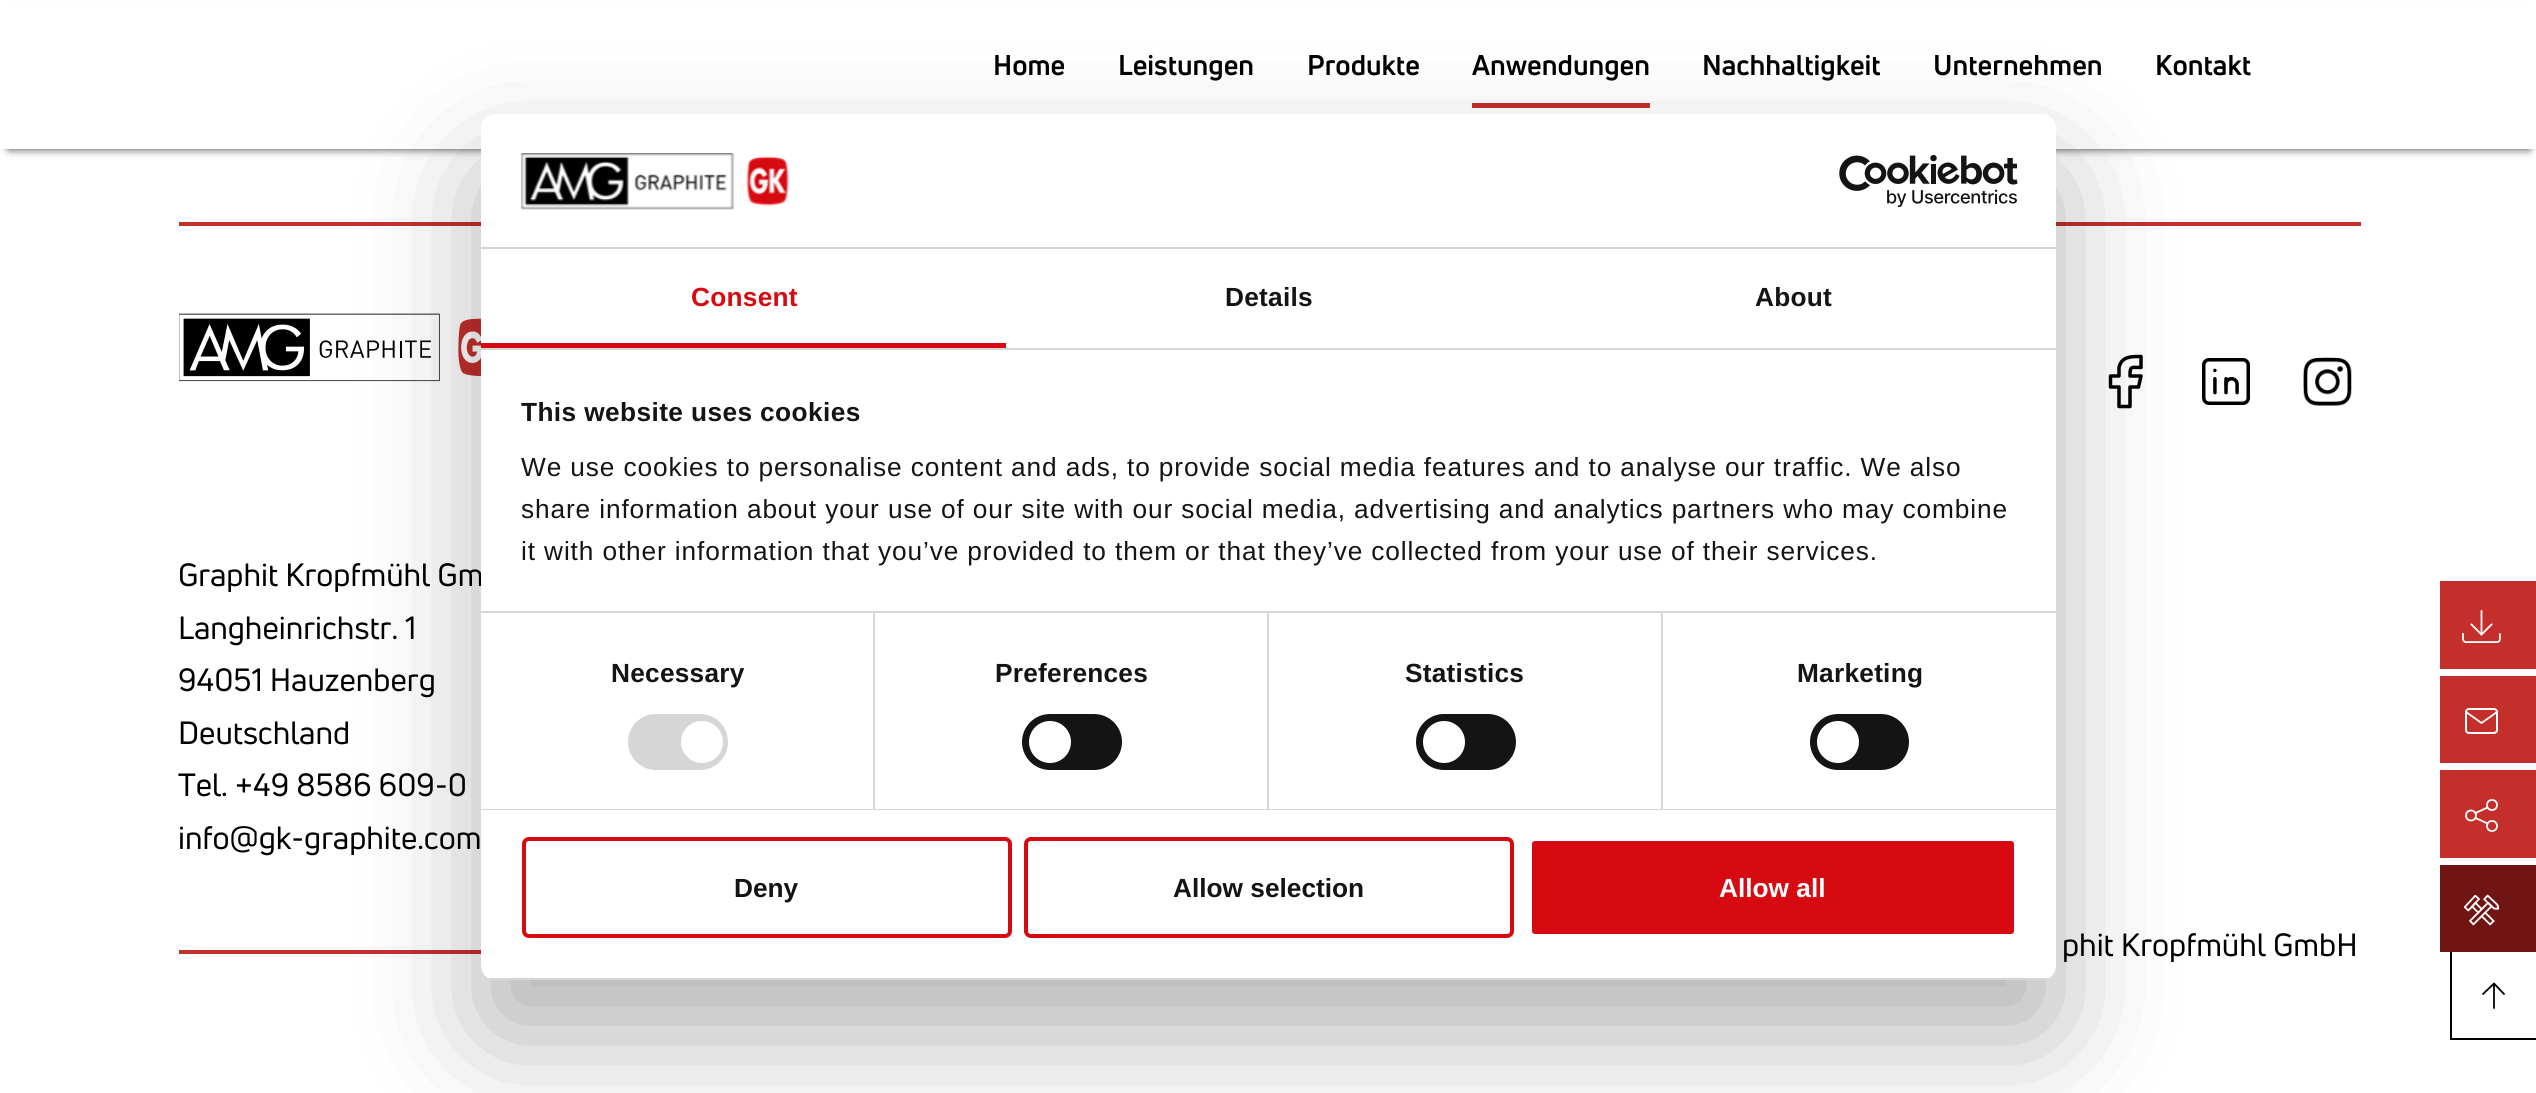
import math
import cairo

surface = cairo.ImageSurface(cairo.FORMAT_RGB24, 2536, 1093)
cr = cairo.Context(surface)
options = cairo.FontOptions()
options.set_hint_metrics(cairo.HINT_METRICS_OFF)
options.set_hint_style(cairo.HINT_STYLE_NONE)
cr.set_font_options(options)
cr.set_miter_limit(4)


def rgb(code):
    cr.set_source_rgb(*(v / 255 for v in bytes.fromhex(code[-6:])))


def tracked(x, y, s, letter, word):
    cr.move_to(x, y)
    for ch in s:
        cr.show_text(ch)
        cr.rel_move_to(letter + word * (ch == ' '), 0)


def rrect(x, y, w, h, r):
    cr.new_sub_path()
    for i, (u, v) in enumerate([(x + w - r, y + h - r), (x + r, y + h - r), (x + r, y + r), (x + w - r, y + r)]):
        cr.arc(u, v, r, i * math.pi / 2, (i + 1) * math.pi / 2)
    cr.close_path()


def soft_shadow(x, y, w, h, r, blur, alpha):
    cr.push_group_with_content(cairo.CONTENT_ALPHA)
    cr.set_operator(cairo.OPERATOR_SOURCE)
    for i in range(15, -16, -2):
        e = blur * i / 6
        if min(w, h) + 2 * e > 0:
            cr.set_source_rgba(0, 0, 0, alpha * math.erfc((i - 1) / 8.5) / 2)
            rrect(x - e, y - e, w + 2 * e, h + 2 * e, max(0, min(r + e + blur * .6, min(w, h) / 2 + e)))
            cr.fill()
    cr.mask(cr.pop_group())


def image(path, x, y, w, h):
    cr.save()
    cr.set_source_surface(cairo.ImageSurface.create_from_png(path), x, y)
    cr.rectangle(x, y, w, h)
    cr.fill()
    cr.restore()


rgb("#ffffff")
cr.paint()
rgb("#383b3e")
soft_shadow(9, 18, 2520, 131, 0, 4.5, 1)
for x, y, w, h, color in [
    (0, 8, 2536, 141, "#ffffff"),
    (1472, 103, 178, 5, "#c42f2c"),
    (2440, 581, 96, 88, "#c42f2c"),
]:
    rgb(color)
    cr.rectangle(x, y, w, h)
    cr.fill()
image("img/1.png", 2462, 610, 39, 33)
cr.rectangle(2440, 676, 96, 87)
cr.fill()
rrect(2466, 709, 31, 24, 3)
rgb("#ffffff")
cr.stroke()
cr.new_path()
cr.move_to(2466, 712)
cr.line_to(2481.5, 723)
cr.line_to(2497, 712)
cr.set_line_width(1.8)
cr.set_line_cap(cairo.LINE_CAP_ROUND)
cr.set_line_join(cairo.LINE_JOIN_ROUND)
cr.stroke()
rgb("#c42f2c")
cr.rectangle(2440, 770, 96, 88)
cr.fill()
cr.arc(2471, 815.5, 5, 0, 2 * math.pi)
rgb("#ffffff")
cr.set_line_cap(cairo.LINE_CAP_BUTT)
cr.set_line_join(cairo.LINE_JOIN_MITER)
cr.stroke()
cr.arc(2492, 805, 5, 0, 2 * math.pi)
cr.stroke()
cr.arc(2492, 826, 5, 0, 2 * math.pi)
cr.stroke()
cr.new_path()
cr.move_to(2475.5, 813)
cr.line_to(2487.5, 807.5)
cr.move_to(2475.5, 818)
cr.line_to(2487.5, 823.5)
cr.set_line_cap(cairo.LINE_CAP_ROUND)
cr.set_line_join(cairo.LINE_JOIN_ROUND)
cr.stroke()
cr.rectangle(2451, 951, 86, 88)
rgb("#000000")
cr.set_line_width(2)
cr.set_line_cap(cairo.LINE_CAP_BUTT)
cr.set_line_join(cairo.LINE_JOIN_MITER)
cr.stroke()
rgb("#711414")
cr.rectangle(2440, 865, 96, 87)
cr.fill()
image("img/2.png", 2463, 894, 37, 32)
rgb("#c42f2c")
cr.rectangle(179, 222, 2182, 4)
cr.fill()
image("img/5.png", 179, 313, 302, 69)
cr.new_path()
cr.move_to(2110.5, 376)
cr.line_to(2110.5, 387)
cr.line_to(2119, 387)
cr.line_to(2119, 406.5)
cr.line_to(2130, 406.5)
cr.line_to(2130, 387)
cr.line_to(2138.5, 387)
cr.line_to(2141, 376)
cr.line_to(2130, 376)
cr.curve_to(2130, 365.5, 2131, 367.5, 2141, 367.5)
cr.line_to(2141, 356.5)
cr.curve_to(2132, 356.5, 2121.5, 356, 2119, 367.5)
cr.line_to(2119, 376)
cr.line_to(2110.5, 376)
rgb("#000000")
cr.set_line_width(3.5)
cr.set_line_cap(cairo.LINE_CAP_ROUND)
cr.set_line_join(cairo.LINE_JOIN_ROUND)
cr.stroke()
image("img/6.png", 2202, 358, 48, 47)
rgb("#c42f2c")
cr.rectangle(179, 950, 302, 4)
cr.fill()
rgb("#000000")
soft_shadow(481, 170, 1575, 866, 14, 59.5, 0.3)
image("img/7.png", 2303, 357, 49, 49)
cr.new_path()
cr.move_to(2494, 983.5)
cr.line_to(2494, 1008)
cr.move_to(2504, 994)
cr.line_to(2494, 983.5)
cr.move_to(2483, 994)
cr.line_to(2494, 983.5)
rgb("#000000")
cr.set_line_width(1.8)
cr.stroke()
cr.select_font_face("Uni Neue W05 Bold", cairo.FONT_SLANT_NORMAL, cairo.FONT_WEIGHT_BOLD)
cr.set_font_size(28)
for x, y, s in [
    (993, 75, "Home"),
    (1118, 75, "Leistungen"),
    (1307, 75, "Produkte"),
    (1472, 75, "Anwendungen"),
    (1702, 75, "Nachhaltigkeit"),
    (1933, 75, "Unternehmen"),
    (2155, 75, "Kontakt"),
]:
    cr.move_to(x, y)
    cr.show_text(s)
cr.select_font_face("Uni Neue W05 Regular")
cr.set_font_size(31.5)
cr.move_to(178, 586)
cr.show_text("Graphit Kropfmühl Gm")
rgb("#ffffff")
rrect(481, 114, 1575, 866, 14)
cr.fill()
rgb("#d70a11")
rrect(1530, 839, 486, 97, 5)
cr.fill_preserve()
rgb("#ffffff")
cr.set_line_width(4)
cr.set_line_cap(cairo.LINE_CAP_BUTT)
cr.set_line_join(cairo.LINE_JOIN_MITER)
cr.stroke()
cr.select_font_face("Liberation Sans", cairo.FONT_SLANT_NORMAL, cairo.FONT_WEIGHT_BOLD)
cr.set_font_size(26.25)
cr.move_to(1719, 897)
cr.show_text("Allow all")
rrect(1026, 839, 486, 97, 5)
rgb("#d70a11")
cr.stroke()
rgb("#141414")
cr.move_to(1173, 897)
cr.show_text("Allow selection")
rrect(524, 839, 486, 97, 5)
rgb("#d70a11")
cr.stroke()
rgb("#141414")
cr.move_to(734, 897)
cr.show_text("Deny")
cr.save()
rrect(481, 114, 1575, 866, 14)
cr.clip()
rgb("#d6d6d6")
cr.rectangle(481, 978, 1575, 2)
cr.fill()
cr.restore()
rrect(1810, 714, 99, 56, 28)
cr.fill()
rgb("#ffffff")
cr.arc(1838, 742, 21, 0, 2 * math.pi)
cr.fill()
rgb("#141414")
rrect(1416, 714, 100, 56, 28)
cr.fill()
rgb("#ffffff")
cr.arc(1444, 742, 21, 0, 2 * math.pi)
cr.fill()
rgb("#141414")
rrect(1022, 714, 100, 56, 28)
cr.fill()
rgb("#ffffff")
cr.arc(1050, 742, 21, 0, 2 * math.pi)
cr.fill()
rgb("#d6d6d6")
rrect(628, 714, 100, 56, 28)
cr.fill()
rgb("#ffffff")
cr.arc(702, 742, 21, 0, 2 * math.pi)
cr.fill()
cr.select_font_face("Liberation Sans")
rgb("#141414")
for x, y, s in [
    (521, 560, "it with other information that you’ve provided to them or that they’ve collected from your use of their services."),
    (521, 518, "share information about your use of our site with our social media, advertising and analytics partners who may combine"),
    (521, 476, "We use cookies to personalise content and ads, to provide social media features and to analyse our traffic. We also"),
]:
    tracked(x, y, s, 0.88, 0)
cr.select_font_face("Liberation Sans", cairo.FONT_SLANT_NORMAL, cairo.FONT_WEIGHT_BOLD)
tracked(521, 421, "This website uses cookies", 0.4, 0)
rgb("#d6d6d6")
cr.rectangle(481, 611, 1575, 2)
cr.fill()
rgb("#141414")
tracked(1755, 306, "About", 0.25, 0)
tracked(1225, 306, "Details", 0.25, 0)
rgb("#d70a11")
tracked(691, 306, "Consent", 0.25, 0)
cr.rectangle(481, 343, 525, 5)
cr.fill()
rgb("#d6d6d6")
cr.rectangle(481, 348, 1575, 2)
cr.fill()
rgb("#141414")
tracked(1797, 682, "Marketing", 0.25, 0)
tracked(1405, 682, "Statistics", 0.25, 0)
rgb("#d6d6d6")
cr.rectangle(1661, 613, 2, 196)
cr.fill()
rgb("#141414")
tracked(995, 682, "Preferences", 0.25, 0)
rgb("#d6d6d6")
cr.rectangle(1267, 613, 2, 196)
cr.fill()
rgb("#141414")
tracked(611, 682, "Necessary", 0.25, 0)
rgb("#d6d6d6")
cr.rectangle(873, 613, 2, 196)
cr.fill()
cr.rectangle(481, 809, 1575, 1)
cr.fill()
image("img/4.png", 1839, 154, 179, 53)
image("img/3.png", 520, 153, 269, 57)
cr.rectangle(481, 247, 1575, 2)
cr.fill()
cr.select_font_face("Uni Neue W05 Regular")
cr.set_font_size(31.5)
rgb("#000000")
for x, y, s in [
    (178, 639, "Langheinrichstr. 1"),
    (178, 691, "94051 Hauzenberg"),
    (178, 744, "Deutschland"),
    (178, 796, "Tel. +49 8586 609-0"),
    (178, 849, "info@gk-graphite.com"),
    (2062, 956, "phit Kropfmühl GmbH"),
]:
    cr.move_to(x, y)
    cr.show_text(s)
surface.write_to_png("page.png")
